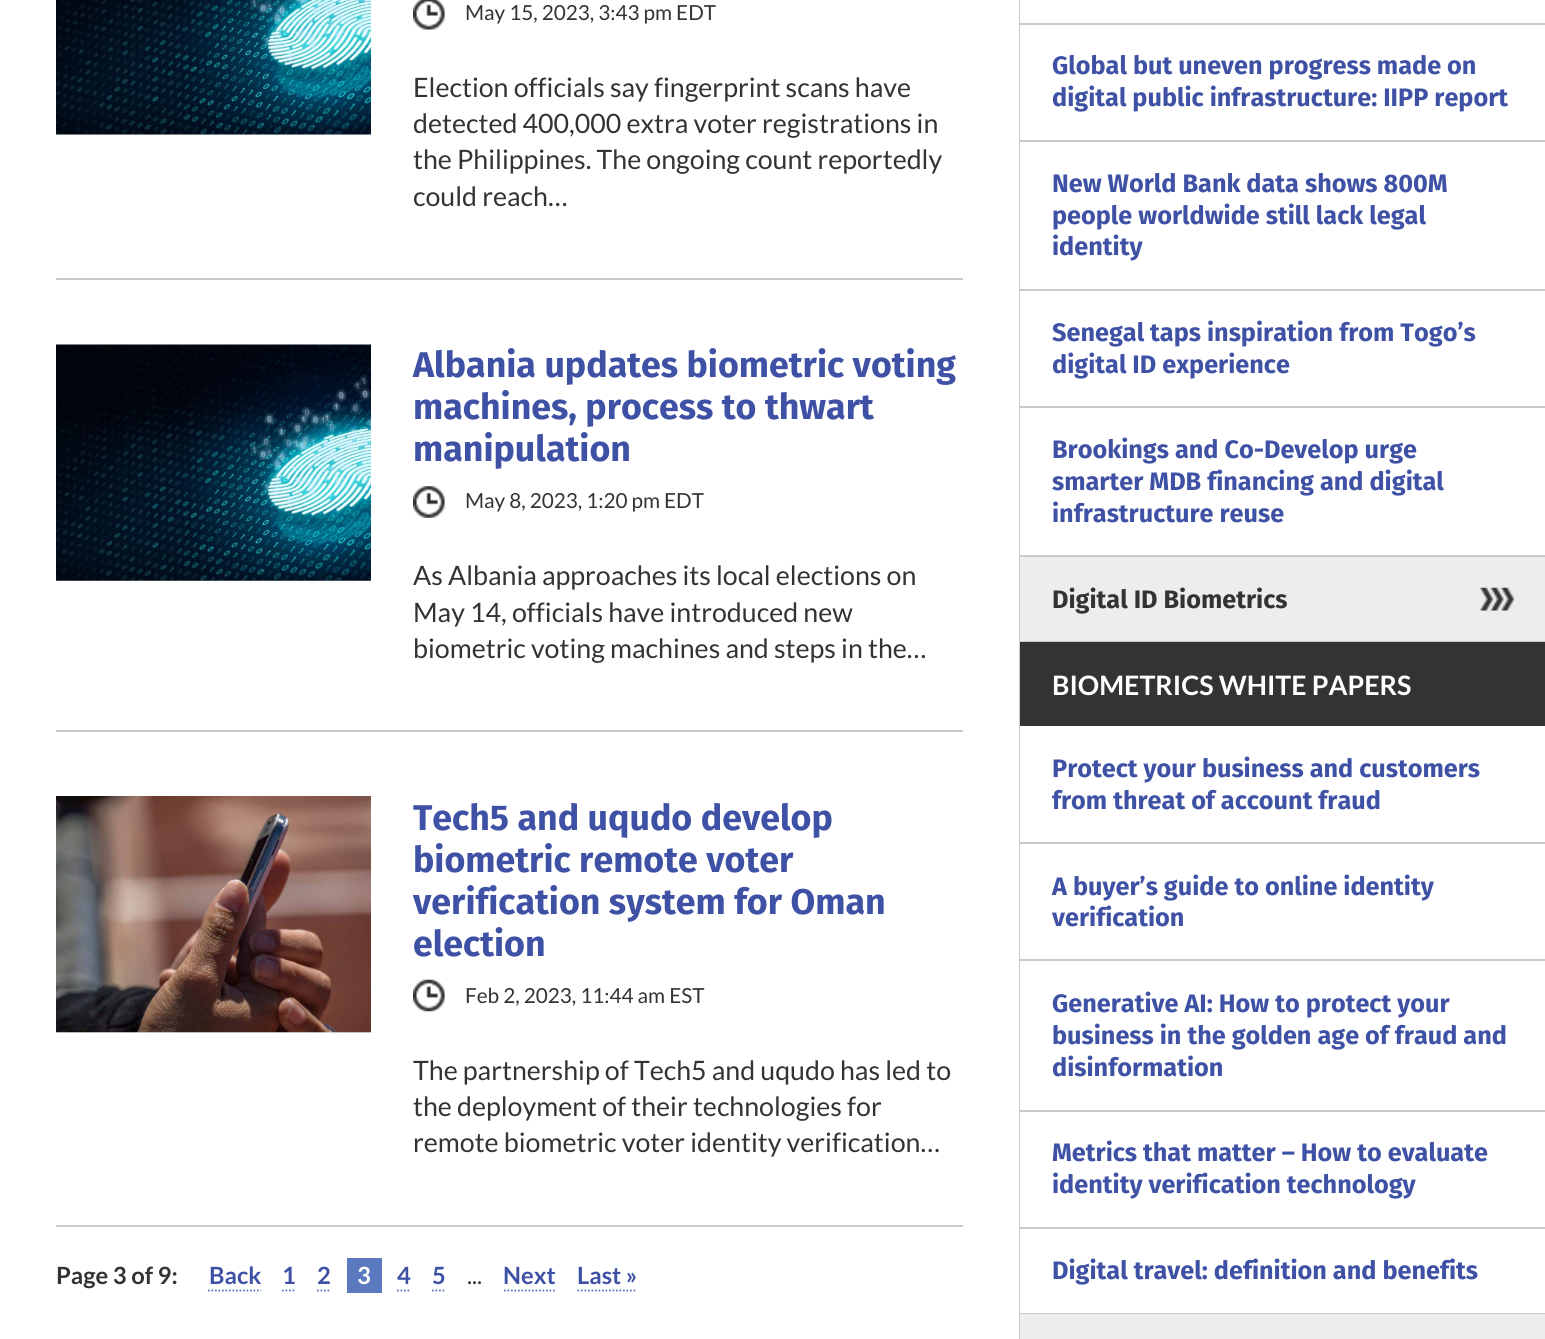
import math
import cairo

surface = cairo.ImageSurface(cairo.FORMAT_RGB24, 1545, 1339)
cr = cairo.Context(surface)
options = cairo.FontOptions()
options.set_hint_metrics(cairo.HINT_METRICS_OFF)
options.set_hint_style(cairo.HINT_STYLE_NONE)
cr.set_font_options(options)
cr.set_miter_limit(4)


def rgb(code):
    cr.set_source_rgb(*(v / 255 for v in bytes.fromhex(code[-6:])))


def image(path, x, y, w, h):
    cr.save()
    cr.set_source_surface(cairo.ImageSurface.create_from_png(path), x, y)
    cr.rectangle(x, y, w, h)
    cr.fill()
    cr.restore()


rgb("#ffffff")
cr.paint()
rgb("#cacaca")
cr.rectangle(56, 278, 907, 2)
cr.fill()
rgb("#efefef")
cr.rectangle(56, 134, 315, 1)
cr.fill()
image("img/1.png", 56, 0, 315, 135)
image("img/2.png", 413, 0, 32, 30)
rgb("#cacaca")
cr.rectangle(56, 730, 907, 2)
cr.fill()
image("img/3.png", 56, 344, 315, 237)
image("img/4.png", 413, 486, 32, 32)
cr.rectangle(56, 1225, 907, 2)
cr.fill()
rgb("#efefef")
cr.rectangle(56, 1032, 315, 1)
cr.fill()
image("img/5.png", 56, 796, 315, 237)
image("img/6.png", 413, 979, 32, 33)
cr.new_path()
cr.move_to(208, 1290.5)
cr.line_to(261, 1290.5)
rgb("#5a79bf")
cr.set_line_width(1.8)
cr.set_dash([1.75, 1.75])
cr.stroke()
cr.new_path()
cr.move_to(282, 1290.5)
cr.line_to(296, 1290.5)
cr.stroke()
cr.new_path()
cr.move_to(317, 1290.5)
cr.line_to(331, 1290.5)
cr.stroke()
cr.rectangle(347, 1258, 35, 35)
cr.fill()
cr.new_path()
cr.move_to(397, 1290.5)
cr.line_to(411, 1290.5)
cr.stroke()
cr.new_path()
cr.move_to(432, 1290.5)
cr.line_to(446, 1290.5)
cr.stroke()
cr.new_path()
cr.move_to(504, 1290.5)
cr.line_to(556.5, 1290.5)
cr.stroke()
cr.new_path()
cr.move_to(577.5, 1290.5)
cr.line_to(637, 1290.5)
cr.stroke()
for x, y, w, h, color in [
    (1019, 0, 1, 1339, "#cacaca"),
    (1020, 23, 525, 2, "#cacaca"),
    (1020, 140, 525, 2, "#cacaca"),
    (1020, 289, 525, 2, "#cacaca"),
    (1020, 406, 525, 2, "#cacaca"),
    (1020, 555, 525, 2, "#cacaca"),
    (1020, 641, 525, 1, "#cacaca"),
    (1020, 557, 525, 84, "#ededed"),
]:
    rgb(color)
    cr.rectangle(x, y, w, h)
    cr.fill()
image("img/7.png", 1480, 587, 34, 24)
for x, y, w, h, color in [
    (1020, 642, 525, 84, "#333333"),
    (1020, 842, 525, 2, "#cacaca"),
    (1020, 959, 525, 2, "#cacaca"),
    (1020, 1110, 525, 2, "#cacaca"),
    (1020, 1227, 525, 2, "#cacaca"),
    (1020, 1313, 525, 1, "#cacaca"),
    (1020, 1314, 525, 25, "#ededed"),
]:
    rgb(color)
    cr.rectangle(x, y, w, h)
    cr.fill()
cr.select_font_face("Lato")
cr.set_font_size(20.75)
rgb("#333333")
cr.move_to(465, 20)
cr.show_text("May 15, 2023, 3:43 pm EDT")
cr.set_font_size(26.75)
for x, y, s in [
    (413, 97, "Election officials say fingerprint scans have"),
    (413, 133, "detected 400,000 extra voter registrations in"),
    (413, 169, "the Philippines. The ongoing count reportedly"),
    (413, 206, "could reach…"),
]:
    cr.move_to(x, y)
    cr.show_text(s)
cr.select_font_face("Fira Sans", cairo.FONT_SLANT_NORMAL, cairo.FONT_WEIGHT_BOLD)
cr.set_font_size(35.75)
rgb("#3e51a5")
for x, y, s in [
    (413, 377, "Albania updates biometric voting"),
    (413, 419, "machines, process to thwart"),
    (413, 461, "manipulation"),
]:
    cr.move_to(x, y)
    cr.show_text(s)
cr.select_font_face("Lato")
cr.set_font_size(20.75)
rgb("#333333")
cr.move_to(465, 508)
cr.show_text("May 8, 2023, 1:20 pm EDT")
cr.set_font_size(26.75)
for x, y, s in [
    (413, 585, "As Albania approaches its local elections on"),
    (413, 622, "May 14, officials have introduced new"),
    (413, 658, "biometric voting machines and steps in the…"),
]:
    cr.move_to(x, y)
    cr.show_text(s)
cr.select_font_face("Fira Sans", cairo.FONT_SLANT_NORMAL, cairo.FONT_WEIGHT_BOLD)
cr.set_font_size(35.75)
rgb("#3e51a5")
for x, y, s in [
    (413, 830, "Tech5 and uqudo develop"),
    (413, 872, "biometric remote voter"),
    (413, 914, "verification system for Oman"),
    (413, 956, "election"),
]:
    cr.move_to(x, y)
    cr.show_text(s)
cr.select_font_face("Lato")
cr.set_font_size(20.75)
rgb("#333333")
cr.move_to(465, 1003)
cr.show_text("Feb 2, 2023, 11:44 am EST")
cr.set_font_size(26.75)
for x, y, s in [
    (413, 1080, "The partnership of Tech5 and uqudo has led to"),
    (413, 1116, "the deployment of their technologies for"),
    (413, 1152, "remote biometric voter identity verification…"),
]:
    cr.move_to(x, y)
    cr.show_text(s)
cr.select_font_face("Lato", cairo.FONT_SLANT_NORMAL, cairo.FONT_WEIGHT_BOLD)
cr.set_font_size(23.75)
cr.move_to(56, 1284)
cr.show_text("Page 3 of 9:")
rgb("#3e51a5")
for x, y, s in [
    (209, 1284, "Back"),
    (282, 1284, "1"),
    (317, 1284, "2"),
]:
    cr.move_to(x, y)
    cr.show_text(s)
rgb("#ffffff")
cr.move_to(357, 1284)
cr.show_text("3")
rgb("#3e51a5")
cr.move_to(397, 1284)
cr.show_text("4")
cr.move_to(432, 1284)
cr.show_text("5")
cr.select_font_face("Lato")
rgb("#333333")
cr.move_to(467, 1284)
cr.show_text("...")
cr.select_font_face("Lato", cairo.FONT_SLANT_NORMAL, cairo.FONT_WEIGHT_BOLD)
rgb("#3e51a5")
cr.move_to(503, 1284)
cr.show_text("Next")
cr.move_to(577, 1284)
cr.show_text("Last »")
cr.select_font_face("Fira Sans", cairo.FONT_SLANT_NORMAL, cairo.FONT_WEIGHT_BOLD)
cr.set_font_size(25.25)
for x, y, s in [
    (1052, 74, "Global but uneven progress made on"),
    (1052, 106, "digital public infrastructure: IIPP report"),
    (1052, 192, "New World Bank data shows 800M"),
    (1052, 224, "people worldwide still lack legal"),
    (1052, 255, "identity"),
    (1052, 341, "Senegal taps inspiration from Togo’s"),
    (1052, 373, "digital ID experience"),
    (1052, 458, "Brookings and Co-Develop urge"),
    (1052, 490, "smarter MDB financing and digital"),
    (1052, 522, "infrastructure reuse"),
]:
    cr.move_to(x, y)
    cr.show_text(s)
rgb("#333333")
cr.move_to(1052, 608)
cr.show_text("Digital ID Biometrics")
cr.select_font_face("Lato", cairo.FONT_SLANT_NORMAL, cairo.FONT_WEIGHT_BOLD)
cr.set_font_size(26.75)
rgb("#ffffff")
cr.move_to(1052, 695)
cr.show_text("BIOMETRICS WHITE PAPERS")
cr.select_font_face("Fira Sans", cairo.FONT_SLANT_NORMAL, cairo.FONT_WEIGHT_BOLD)
cr.set_font_size(25.25)
rgb("#3e51a5")
for x, y, s in [
    (1052, 777, "Protect your business and customers"),
    (1052, 809, "from threat of account fraud"),
    (1052, 895, "A buyer’s guide to online identity"),
    (1052, 926, "verification"),
    (1052, 1012, "Generative AI: How to protect your"),
    (1052, 1044, "business in the golden age of fraud and"),
    (1052, 1076, "disinformation"),
    (1052, 1161, "Metrics that matter – How to evaluate"),
    (1052, 1193, "identity verification technology"),
    (1052, 1279, "Digital travel: definition and benefits"),
]:
    cr.move_to(x, y)
    cr.show_text(s)
surface.write_to_png("page.png")
